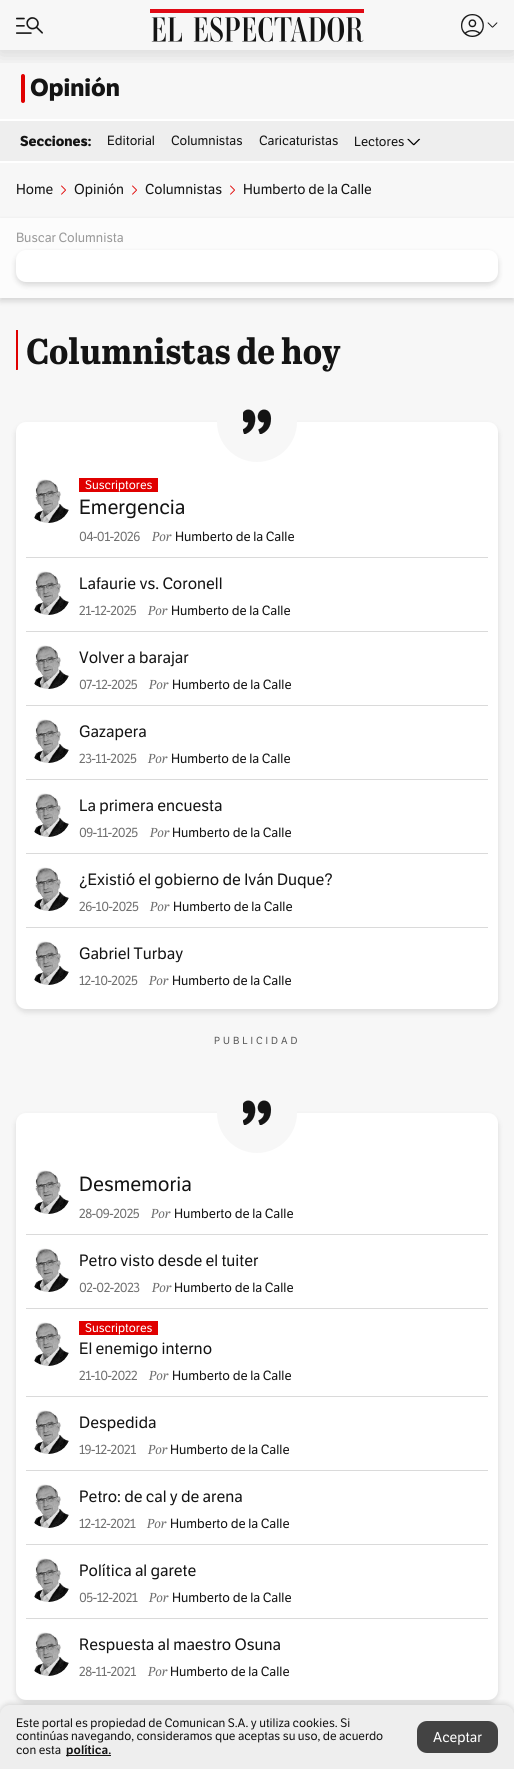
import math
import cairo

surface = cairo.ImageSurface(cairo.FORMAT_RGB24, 514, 1769)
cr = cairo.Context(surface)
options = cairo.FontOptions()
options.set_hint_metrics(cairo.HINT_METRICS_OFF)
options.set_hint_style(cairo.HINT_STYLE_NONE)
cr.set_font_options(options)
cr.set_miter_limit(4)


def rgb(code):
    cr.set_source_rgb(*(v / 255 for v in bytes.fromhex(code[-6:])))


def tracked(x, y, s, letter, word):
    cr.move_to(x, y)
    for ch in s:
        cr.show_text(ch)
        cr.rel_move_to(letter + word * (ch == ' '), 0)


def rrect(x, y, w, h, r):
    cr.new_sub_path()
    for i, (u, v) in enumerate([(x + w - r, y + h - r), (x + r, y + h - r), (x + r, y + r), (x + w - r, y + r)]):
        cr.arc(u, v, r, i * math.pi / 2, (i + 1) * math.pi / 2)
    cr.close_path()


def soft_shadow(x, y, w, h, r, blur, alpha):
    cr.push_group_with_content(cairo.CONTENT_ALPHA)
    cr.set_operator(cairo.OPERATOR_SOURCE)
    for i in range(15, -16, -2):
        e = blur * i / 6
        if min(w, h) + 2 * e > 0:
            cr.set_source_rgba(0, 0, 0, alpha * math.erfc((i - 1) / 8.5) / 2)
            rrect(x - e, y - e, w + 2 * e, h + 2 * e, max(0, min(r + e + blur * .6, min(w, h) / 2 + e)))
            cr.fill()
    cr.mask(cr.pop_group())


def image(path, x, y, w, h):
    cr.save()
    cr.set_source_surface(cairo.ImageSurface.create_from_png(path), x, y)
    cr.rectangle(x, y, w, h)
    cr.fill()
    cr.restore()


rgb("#f7f7f7")
cr.paint()
rgb("#e00000")
rrect(21, 74, 4, 29, 2)
cr.fill()
cr.save()
cr.rectangle(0, 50, 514, 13)
cr.clip()
rgb("#000000")
soft_shadow(0, 2, 514, 50, 0, 10, 0.16)
cr.restore()
image("img/1.png", 16, 17, 27, 17)
image("img/2.png", 150, 9, 214, 33)
image("img/3.png", 461, 14, 23, 23)
image("img/4.png", 487, 22, 11, 6)
for x, y, w, h, color in [
    (0, 119, 514, 2, "#ffffff"),
    (0, 161, 514, 2, "#ffffff"),
    (0, 121, 514, 40, "#eeeeee"),
]:
    rgb(color)
    cr.rectangle(x, y, w, h)
    cr.fill()
image("img/5.png", 407, 138, 14, 8)
image("img/6.png", 61, 185, 5, 10)
image("img/6.png", 132, 185, 5, 10)
image("img/6.png", 230, 185, 5, 10)
rgb("#141414")
soft_shadow(0, 221, 514, 80, 0, 3, 0.16)
rgb("#fcfcfc")
cr.rectangle(0, 218, 514, 80)
cr.fill()
rgb("#141414")
soft_shadow(16, 253, 482, 32, 10, 3, 0.16)
rgb("#ffffff")
rrect(16, 250, 482, 32, 10)
cr.fill()
rgb("#e00000")
cr.new_path()
cr.move_to(16, 330)
cr.line_to(18, 330)
cr.line_to(18, 335)
cr.line_to(18, 369)
cr.curve_to(18, 370, 18, 370, 16, 370)
cr.line_to(16, 365)
cr.close_path()
cr.fill()
rgb("#000000")
soft_shadow(16, 425, 482, 587, 10, 3, 0.12)
rgb("#ffffff")
rrect(16, 422, 482, 587, 10)
cr.fill()
rgb("#f7f7f7")
cr.arc(257, 422, 40, 0, 2 * math.pi)
cr.fill()
image("img/7.png", 243, 409, 29, 25)
image("img/8.png", 34, 479, 35, 44)
rgb("#e00000")
cr.rectangle(79, 478, 79, 14)
cr.fill()
rgb("#dadada")
cr.rectangle(26, 557, 462, 1)
cr.fill()
image("img/8.png", 34, 571, 35, 44)
cr.rectangle(26, 631, 462, 1)
cr.fill()
image("img/8.png", 34, 645, 35, 44)
cr.rectangle(26, 705, 462, 1)
cr.fill()
image("img/8.png", 34, 719, 35, 44)
cr.rectangle(26, 779, 462, 1)
cr.fill()
image("img/9.png", 34, 793, 35, 44)
cr.rectangle(26, 853, 462, 1)
cr.fill()
image("img/8.png", 34, 867, 35, 44)
cr.rectangle(26, 927, 462, 1)
cr.fill()
image("img/8.png", 34, 941, 35, 44)
rgb("#000000")
soft_shadow(16, 1116, 482, 587, 10, 3, 0.12)
rgb("#ffffff")
rrect(16, 1113, 482, 587, 10)
cr.fill()
rgb("#f7f7f7")
cr.arc(257, 1113, 40, 0, 2 * math.pi)
cr.fill()
image("img/7.png", 243, 1100, 29, 25)
image("img/8.png", 34, 1170, 35, 44)
rgb("#dadada")
cr.rectangle(26, 1234, 462, 1)
cr.fill()
image("img/8.png", 34, 1248, 35, 44)
cr.rectangle(26, 1308, 462, 1)
cr.fill()
image("img/10.png", 34, 1322, 35, 44)
rgb("#e00000")
cr.rectangle(79, 1321, 79, 14)
cr.fill()
rgb("#dadada")
cr.rectangle(26, 1396, 462, 1)
cr.fill()
image("img/8.png", 34, 1410, 35, 44)
cr.rectangle(26, 1470, 462, 1)
cr.fill()
image("img/11.png", 34, 1484, 35, 44)
cr.rectangle(26, 1544, 462, 1)
cr.fill()
image("img/8.png", 34, 1558, 35, 44)
cr.rectangle(26, 1618, 462, 1)
cr.fill()
image("img/8.png", 34, 1632, 35, 44)
rgb("#000000")
soft_shadow(0, 1704, 514, 64, 10, 3, 0.16)
rgb("#eeeeee")
cr.new_path()
cr.move_to(10, 1705)
cr.line_to(504, 1705)
cr.curve_to(509.5, 1705, 514, 1709.5, 514, 1715)
cr.line_to(514, 1769)
cr.line_to(0, 1769)
cr.line_to(0, 1715)
cr.curve_to(0, 1709.5, 4.5, 1705, 10, 1705)
cr.close_path()
cr.fill()
rgb("#141414")
cr.rectangle(66, 1755, 45, 1)
cr.fill()
rgb("#434343")
rrect(417, 1721, 81, 32, 10)
cr.fill()
cr.select_font_face("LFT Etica", cairo.FONT_SLANT_NORMAL, cairo.FONT_WEIGHT_BOLD)
cr.set_font_size(24)
rgb("#141414")
cr.move_to(30, 96)
cr.show_text("Opinión")
cr.set_font_size(14)
cr.move_to(20, 146)
cr.show_text("Secciones:")
cr.select_font_face("LFT Etica")
cr.set_font_size(13)
for x, y, s in [
    (107, 145, "Editorial"),
    (171, 145, "Columnistas"),
    (259, 145, "Caricaturistas"),
    (354, 146, "Lectores"),
]:
    cr.move_to(x, y)
    cr.show_text(s)
cr.set_font_size(14)
for x, y, s in [
    (16, 194, "Home"),
    (74, 194, "Opinión"),
    (145, 194, "Columnistas"),
    (243, 194, "Humberto de la Calle"),
]:
    cr.move_to(x, y)
    cr.show_text(s)
cr.set_font_size(13)
rgb("#9a9a9a")
cr.move_to(16, 242)
cr.show_text("Buscar Columnista")
cr.select_font_face("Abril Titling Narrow", cairo.FONT_SLANT_NORMAL, cairo.FONT_WEIGHT_BOLD)
cr.set_font_size(36)
rgb("#141414")
cr.move_to(26, 364)
cr.show_text("Columnistas de hoy")
cr.select_font_face("LFT Etica")
cr.set_font_size(12)
rgb("#ffffff")
cr.move_to(85, 489)
cr.show_text("Suscriptores")
cr.set_font_size(20)
rgb("#141414")
cr.move_to(79, 514)
cr.show_text("Emergencia")
cr.set_font_size(13)
rgb("#707070")
tracked(79, 541, "04-01-2026", -0.5, 0)
cr.select_font_face("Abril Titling", cairo.FONT_SLANT_ITALIC)
cr.move_to(152, 541)
cr.show_text("Por")
cr.select_font_face("LFT Etica")
rgb("#141414")
cr.move_to(175, 541)
cr.show_text("Humberto de la Calle")
cr.set_font_size(16)
cr.move_to(79, 589)
cr.show_text("Lafaurie vs. Coronell")
cr.set_font_size(13)
rgb("#707070")
tracked(79, 615, "21-12-2025", -0.5, 0)
cr.select_font_face("Abril Titling", cairo.FONT_SLANT_ITALIC)
cr.move_to(148, 615)
cr.show_text("Por")
cr.select_font_face("LFT Etica")
rgb("#141414")
cr.move_to(171, 615)
cr.show_text("Humberto de la Calle")
cr.set_font_size(16)
cr.move_to(79, 663)
cr.show_text("Volver a barajar")
cr.set_font_size(13)
rgb("#707070")
tracked(79, 689, "07-12-2025", -0.5, 0)
cr.select_font_face("Abril Titling", cairo.FONT_SLANT_ITALIC)
cr.move_to(149, 689)
cr.show_text("Por")
cr.select_font_face("LFT Etica")
rgb("#141414")
cr.move_to(172, 689)
cr.show_text("Humberto de la Calle")
cr.set_font_size(16)
cr.move_to(79, 737)
cr.show_text("Gazapera")
cr.set_font_size(13)
rgb("#707070")
tracked(79, 763, "23-11-2025", -0.5, 0)
cr.select_font_face("Abril Titling", cairo.FONT_SLANT_ITALIC)
cr.move_to(148, 763)
cr.show_text("Por")
cr.select_font_face("LFT Etica")
rgb("#141414")
cr.move_to(171, 763)
cr.show_text("Humberto de la Calle")
cr.set_font_size(16)
cr.move_to(79, 811)
cr.show_text("La primera encuesta")
cr.set_font_size(13)
rgb("#707070")
tracked(79, 837, "09-11-2025", -0.5, 0)
cr.select_font_face("Abril Titling", cairo.FONT_SLANT_ITALIC)
cr.move_to(150, 837)
cr.show_text("Por")
cr.select_font_face("LFT Etica")
rgb("#141414")
cr.move_to(172, 837)
cr.show_text("Humberto de la Calle")
cr.set_font_size(16)
cr.move_to(79, 885)
cr.show_text("¿Existió el gobierno de Iván Duque?")
cr.set_font_size(13)
rgb("#707070")
tracked(79, 911, "26-10-2025", -0.5, 0)
cr.select_font_face("Abril Titling", cairo.FONT_SLANT_ITALIC)
cr.move_to(150, 911)
cr.show_text("Por")
cr.select_font_face("LFT Etica")
rgb("#141414")
cr.move_to(173, 911)
cr.show_text("Humberto de la Calle")
cr.set_font_size(16)
cr.move_to(79, 959)
cr.show_text("Gabriel Turbay")
cr.set_font_size(13)
rgb("#707070")
tracked(79, 985, "12-10-2025", -0.5, 0)
cr.select_font_face("Abril Titling", cairo.FONT_SLANT_ITALIC)
cr.move_to(149, 985)
cr.show_text("Por")
cr.select_font_face("LFT Etica")
rgb("#141414")
cr.move_to(172, 985)
cr.show_text("Humberto de la Calle")
cr.set_font_size(10)
rgb("#5a5a5a")
tracked(214, 1044, "PUBLICIDAD", 3, 0)
cr.set_font_size(20)
rgb("#141414")
cr.move_to(79, 1191)
cr.show_text("Desmemoria")
cr.set_font_size(13)
rgb("#707070")
tracked(79, 1218, "28-09-2025", -0.5, 0)
cr.select_font_face("Abril Titling", cairo.FONT_SLANT_ITALIC)
cr.move_to(151, 1218)
cr.show_text("Por")
cr.select_font_face("LFT Etica")
rgb("#141414")
cr.move_to(174, 1218)
cr.show_text("Humberto de la Calle")
cr.set_font_size(16)
cr.move_to(79, 1266)
cr.show_text("Petro visto desde el tuiter")
cr.set_font_size(13)
rgb("#707070")
tracked(79, 1292, "02-02-2023", -0.5, 0)
cr.select_font_face("Abril Titling", cairo.FONT_SLANT_ITALIC)
cr.move_to(152, 1292)
cr.show_text("Por")
cr.select_font_face("LFT Etica")
rgb("#141414")
cr.move_to(174, 1292)
cr.show_text("Humberto de la Calle")
cr.set_font_size(12)
rgb("#ffffff")
cr.move_to(85, 1332)
cr.show_text("Suscriptores")
cr.set_font_size(16)
rgb("#141414")
cr.move_to(79, 1354)
cr.show_text("El enemigo interno")
cr.set_font_size(13)
rgb("#707070")
tracked(79, 1380, "21-10-2022", -0.5, 0)
cr.select_font_face("Abril Titling", cairo.FONT_SLANT_ITALIC)
cr.move_to(149, 1380)
cr.show_text("Por")
cr.select_font_face("LFT Etica")
rgb("#141414")
cr.move_to(172, 1380)
cr.show_text("Humberto de la Calle")
cr.set_font_size(16)
cr.move_to(79, 1428)
cr.show_text("Despedida")
cr.set_font_size(13)
rgb("#707070")
tracked(79, 1454, "19-12-2021", -0.5, 0)
cr.select_font_face("Abril Titling", cairo.FONT_SLANT_ITALIC)
cr.move_to(148, 1454)
cr.show_text("Por")
cr.select_font_face("LFT Etica")
rgb("#141414")
cr.move_to(170, 1454)
cr.show_text("Humberto de la Calle")
cr.set_font_size(16)
cr.move_to(79, 1502)
cr.show_text("Petro: de cal y de arena")
cr.set_font_size(13)
rgb("#707070")
tracked(79, 1528, "12-12-2021", -0.5, 0)
cr.select_font_face("Abril Titling", cairo.FONT_SLANT_ITALIC)
cr.move_to(147, 1528)
cr.show_text("Por")
cr.select_font_face("LFT Etica")
rgb("#141414")
cr.move_to(170, 1528)
cr.show_text("Humberto de la Calle")
cr.set_font_size(16)
cr.move_to(79, 1576)
cr.show_text("Política al garete")
cr.set_font_size(13)
rgb("#707070")
tracked(79, 1602, "05-12-2021", -0.5, 0)
cr.select_font_face("Abril Titling", cairo.FONT_SLANT_ITALIC)
cr.move_to(149, 1602)
cr.show_text("Por")
cr.select_font_face("LFT Etica")
rgb("#141414")
cr.move_to(172, 1602)
cr.show_text("Humberto de la Calle")
cr.set_font_size(16)
cr.move_to(79, 1650)
cr.show_text("Respuesta al maestro Osuna")
cr.set_font_size(13)
rgb("#707070")
tracked(79, 1676, "28-11-2021", -0.5, 0)
cr.select_font_face("Abril Titling", cairo.FONT_SLANT_ITALIC)
cr.move_to(148, 1676)
cr.show_text("Por")
cr.select_font_face("LFT Etica")
rgb("#141414")
cr.move_to(170, 1676)
cr.show_text("Humberto de la Calle")
cr.set_font_size(12)
for x, y, s in [
    (16, 1727, "Este portal es propiedad de Comunican S.A. y utiliza cookies. Si"),
    (16, 1740, "continúas navegando, consideramos que aceptas su uso, de acuerdo"),
    (16, 1754, "con esta"),
]:
    cr.move_to(x, y)
    cr.show_text(s)
cr.select_font_face("LFT Etica SemiBold")
cr.move_to(66, 1754)
cr.show_text("política.")
cr.select_font_face("LFT Etica")
cr.set_font_size(14)
rgb("#ffffff")
cr.move_to(433, 1742)
cr.show_text("Aceptar")
surface.write_to_png("page.png")
